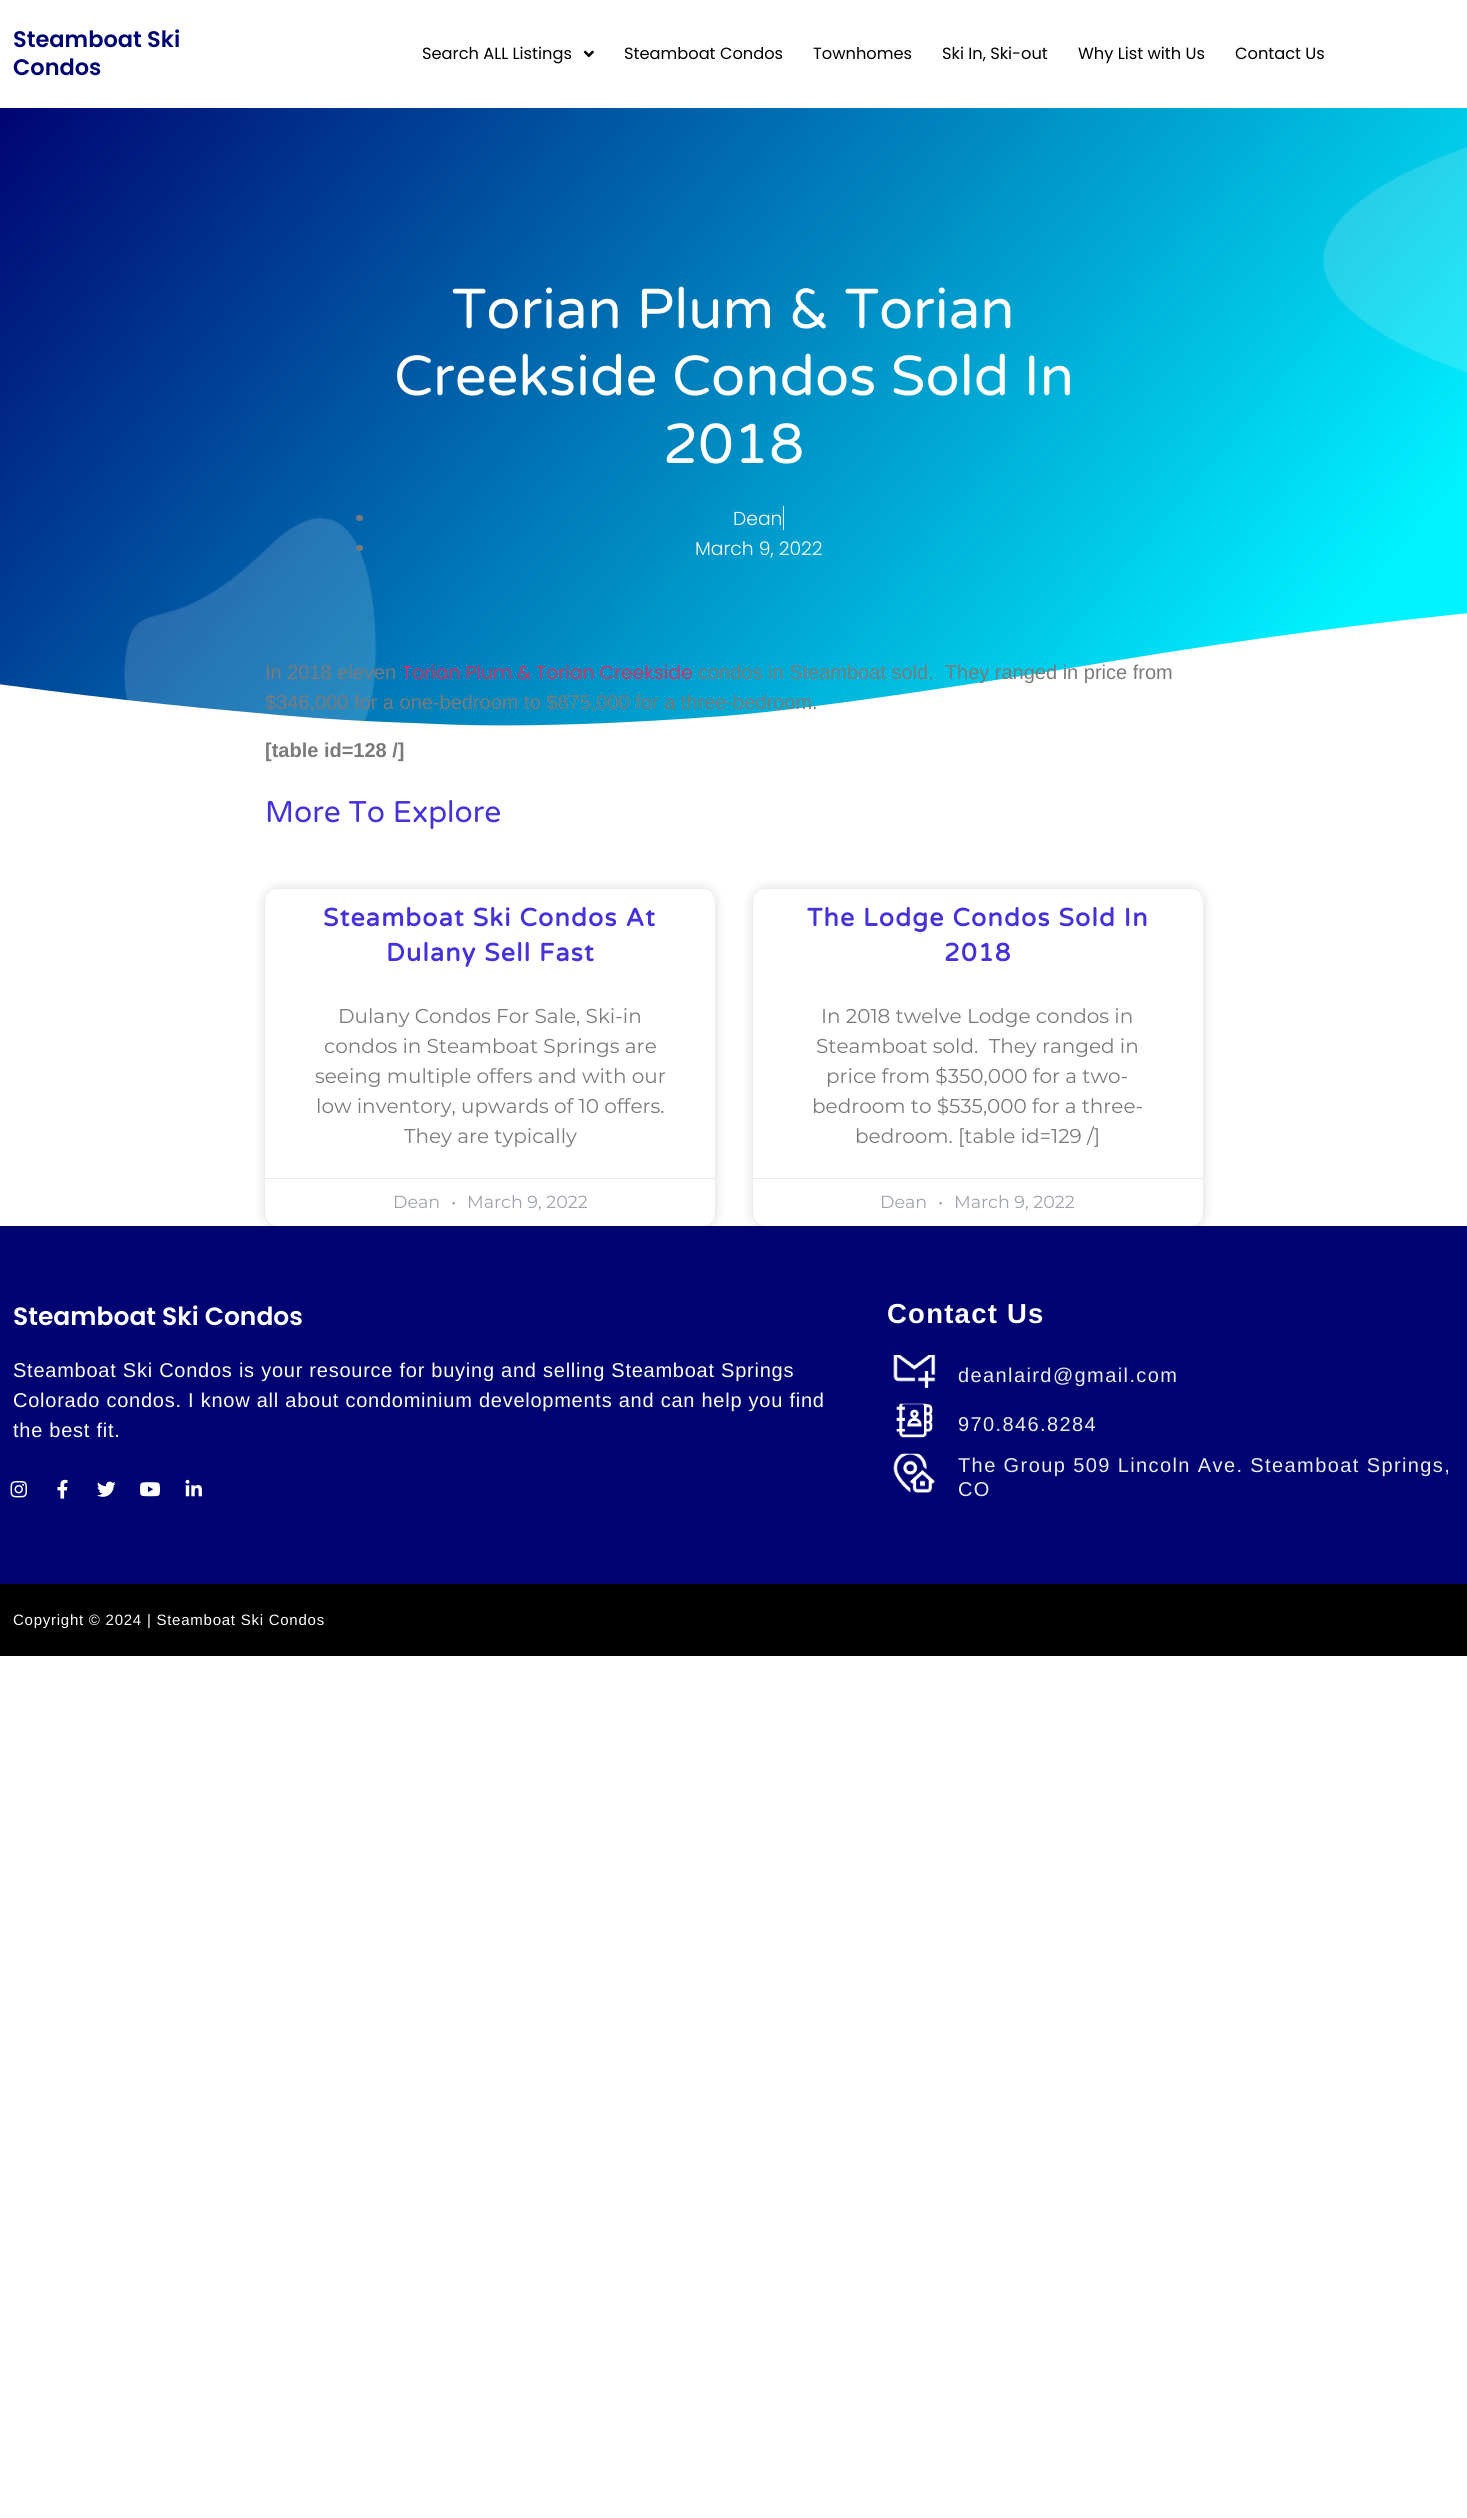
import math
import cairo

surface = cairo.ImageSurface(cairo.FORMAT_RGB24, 1467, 2518)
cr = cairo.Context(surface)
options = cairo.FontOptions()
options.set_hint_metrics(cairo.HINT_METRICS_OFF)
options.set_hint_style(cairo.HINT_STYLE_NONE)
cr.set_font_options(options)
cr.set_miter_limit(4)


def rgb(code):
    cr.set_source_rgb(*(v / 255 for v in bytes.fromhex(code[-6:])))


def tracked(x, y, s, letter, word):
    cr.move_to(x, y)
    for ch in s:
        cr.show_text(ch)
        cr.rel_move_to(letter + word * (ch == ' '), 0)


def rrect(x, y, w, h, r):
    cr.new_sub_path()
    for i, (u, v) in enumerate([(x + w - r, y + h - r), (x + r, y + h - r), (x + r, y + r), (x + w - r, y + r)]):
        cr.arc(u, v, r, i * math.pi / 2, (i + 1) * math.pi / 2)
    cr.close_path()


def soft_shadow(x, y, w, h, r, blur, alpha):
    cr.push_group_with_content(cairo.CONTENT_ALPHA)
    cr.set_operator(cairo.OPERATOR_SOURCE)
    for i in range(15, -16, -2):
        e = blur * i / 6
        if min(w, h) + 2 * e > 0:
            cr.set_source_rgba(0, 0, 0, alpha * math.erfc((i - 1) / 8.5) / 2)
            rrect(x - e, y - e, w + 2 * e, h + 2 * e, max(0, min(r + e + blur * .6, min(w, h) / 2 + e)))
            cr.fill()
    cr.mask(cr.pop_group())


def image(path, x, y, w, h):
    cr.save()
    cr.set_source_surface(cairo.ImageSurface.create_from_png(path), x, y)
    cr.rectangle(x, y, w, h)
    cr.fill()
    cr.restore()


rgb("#ffffff")
cr.paint()
image("img/1.png", 583, 50, 11, 8)
gradient = cairo.LinearGradient(149, -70, 1318, 910)
gradient.add_color_stop_rgba(0, 0, 0.016, 0.451, 1)
gradient.add_color_stop_rgba(0.89, 0, 0.949, 1, 1)
cr.set_source(gradient)
cr.rectangle(0, 108, 1467, 618)
cr.fill()
image("img/2.png", 124, 147, 1343, 574)
rgb("#7a7a7a")
rrect(356, 515, 7, 6, 3)
cr.fill()
rgb("#ffffff")
cr.rectangle(783, 506, 1, 24)
cr.fill()
rgb("#7a7a7a")
rrect(356, 545, 7, 6, 3)
cr.fill()
rgb("#ffffff")
cr.new_path()
cr.move_to(436, 724)
cr.curve_to(522, 728, 632, 723, 724, 716)
cr.curve_to(814, 709, 994, 681, 1107, 662)
cr.curve_to(1397, 614, 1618, 596, 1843, 588)
cr.curve_to(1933, 585, 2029, 583, 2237, 592)
cr.curve_to(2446, 601, 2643, 630, 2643, 630)
cr.line_to(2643, 734)
cr.line_to(-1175, 734)
cr.line_to(-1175, 688)
cr.curve_to(-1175, 688, -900, 639, -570, 643)
cr.curve_to(-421, 644, -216, 653, -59, 676)
cr.curve_to(22, 688, 141, 703, 246, 712)
cr.curve_to(349, 722, 396, 722, 436, 724)
cr.close_path()
cr.fill()
rgb("#000000")
soft_shadow(265, 889, 450, 337, 13, 6, 0.15)
rgb("#ffffff")
rrect(265, 889, 450, 337, 13)
cr.fill()
rgb("#eaeaea")
cr.rectangle(265, 1178, 450, 1)
cr.fill()
rgb("#000000")
soft_shadow(753, 889, 450, 337, 13, 6, 0.15)
rgb("#ffffff")
rrect(753, 889, 450, 337, 13)
cr.fill()
rgb("#eaeaea")
cr.rectangle(753, 1178, 450, 1)
cr.fill()
rgb("#000473")
cr.rectangle(0, 1226, 1467, 358)
cr.fill()
image("img/3.png", 10, 1481, 17, 17)
image("img/4.png", 57, 1479, 11, 20)
image("img/5.png", 97, 1481, 19, 16)
image("img/6.png", 140, 1482, 20, 15)
image("img/7.png", 185, 1479, 17, 18)
image("img/8.png", 893, 1355, 43, 34)
image("img/9.png", 896, 1403, 37, 35)
image("img/10.png", 893, 1453, 43, 40)
rgb("#000000")
cr.rectangle(0, 1584, 1467, 72)
cr.fill()
cr.select_font_face("Poppins SemiBold")
cr.set_font_size(22.5)
rgb("#000473")
cr.move_to(13, 47)
cr.show_text("Steamboat Ski")
cr.move_to(13, 75)
cr.show_text("Condos")
cr.select_font_face("Poppins")
cr.set_font_size(16.25)
rgb("#000000")
for x, y, s in [
    (422, 59, "Search ALL Listings"),
    (624, 59, "Steamboat Condos"),
    (813, 59, "Townhomes"),
    (942, 59, "Ski In, Ski-out"),
    (1078, 59, "Why List with Us"),
    (1235, 59, "Contact Us"),
]:
    cr.move_to(x, y)
    cr.show_text(s)
cr.select_font_face("Varela Round")
cr.set_font_size(56.25)
rgb("#ffffff")
for x, y, s in [
    (452, 328, "Torian Plum & Torian"),
    (394, 395, "Creekside Condos Sold In"),
    (663, 463, "2018"),
]:
    cr.move_to(x, y)
    cr.show_text(s)
cr.select_font_face("Poppins Light")
cr.set_font_size(18.75)
cr.move_to(733, 525)
cr.show_text("Dean")
cr.move_to(695, 555)
cr.show_text("March 9, 2022")
cr.select_font_face("Liberation Sans")
cr.set_font_size(20)
rgb("#7a7a7a")
cr.move_to(265, 679)
cr.show_text("In 2018 eleven")
cr.select_font_face("Poppins")
cr.set_font_size(18.75)
rgb("#cc3366")
cr.move_to(402, 679)
cr.show_text("Torian Plum & Torian Creekside")
cr.select_font_face("Liberation Sans")
cr.set_font_size(20)
rgb("#7a7a7a")
cr.move_to(698, 679)
cr.show_text("condos in Steamboat sold.  They ranged in price from")
cr.move_to(265, 709)
cr.show_text("$346,000 for a one-bedroom to $875,000 for a three-bedroom.")
cr.select_font_face("Liberation Sans", cairo.FONT_SLANT_NORMAL, cairo.FONT_WEIGHT_BOLD)
cr.move_to(265, 757)
cr.show_text("[table id=128 /]")
cr.select_font_face("Varela Round")
cr.set_font_size(30)
rgb("#4632da")
cr.move_to(265, 822)
cr.show_text("More To Explore")
cr.select_font_face("Varela Round", cairo.FONT_SLANT_NORMAL, cairo.FONT_WEIGHT_BOLD)
cr.set_font_size(25)
tracked(323, 926, "Steamboat Ski Condos At", 1.25, 0)
tracked(386, 961, "Dulany Sell Fast", 1.25, 0)
cr.select_font_face("Montserrat")
cr.set_font_size(20)
rgb("#7a7a7a")
for x, y, s in [
    (338, 1023, "Dulany Condos For Sale, Ski-in"),
    (324, 1053, "condos in Steamboat Springs are"),
    (315, 1083, "seeing multiple offers and with our"),
    (316, 1113, "low inventory, upwards of 10 offers."),
    (404, 1143, "They are typically"),
]:
    cr.move_to(x, y)
    cr.show_text(s)
cr.set_font_size(17.5)
rgb("#9ea2ac")
for x, y, s in [
    (393, 1208, "Dean"),
    (451, 1208, "•"),
    (467, 1208, "March 9, 2022"),
]:
    cr.move_to(x, y)
    cr.show_text(s)
cr.select_font_face("Varela Round", cairo.FONT_SLANT_NORMAL, cairo.FONT_WEIGHT_BOLD)
cr.set_font_size(25)
rgb("#4632da")
tracked(807, 926, "The Lodge Condos Sold In", 1.25, 0)
tracked(944, 961, "2018", 1.25, 0)
cr.select_font_face("Montserrat")
cr.set_font_size(20)
rgb("#7a7a7a")
for x, y, s in [
    (821, 1023, "In 2018 twelve Lodge condos in"),
    (816, 1053, "Steamboat sold.  They ranged in"),
    (826, 1083, "price from $350,000 for a two-"),
    (812, 1113, "bedroom to $535,000 for a three-"),
    (855, 1143, "bedroom. [table id=129 /]"),
]:
    cr.move_to(x, y)
    cr.show_text(s)
cr.set_font_size(17.5)
rgb("#9ea2ac")
for x, y, s in [
    (880, 1208, "Dean"),
    (938, 1208, "•"),
    (954, 1208, "March 9, 2022"),
]:
    cr.move_to(x, y)
    cr.show_text(s)
cr.select_font_face("Poppins SemiBold")
cr.set_font_size(25)
rgb("#ffffff")
cr.move_to(13, 1325)
cr.show_text("Steamboat Ski Condos")
cr.select_font_face("Liberation Sans")
cr.set_font_size(20)
for x, y, s in [
    (13, 1377, "Steamboat Ski Condos is your resource for buying and selling Steamboat Springs"),
    (13, 1407, "Colorado condos. I know all about condominium developments and can help you find"),
    (13, 1437, "the best fit."),
]:
    tracked(x, y, s, 0.75, 0)
cr.select_font_face("Liberation Sans", cairo.FONT_SLANT_NORMAL, cairo.FONT_WEIGHT_BOLD)
cr.set_font_size(27.5)
tracked(887, 1323, "Contact Us", 1.25, 0)
cr.select_font_face("Liberation Sans")
cr.set_font_size(20)
rgb("#ececec")
for x, y, s in [
    (958, 1382, "deanlaird@gmail.com"),
    (958, 1431, "970.846.8284"),
    (958, 1472, "The Group 509 Lincoln Ave. Steamboat Springs,"),
    (958, 1496, "CO"),
]:
    tracked(x, y, s, 1.4, 0)
cr.set_font_size(15)
rgb("#ffffff")
tracked(13, 1625, "Copyright © 2024 | Steamboat Ski Condos", 0.75, 0)
surface.write_to_png("page.png")
